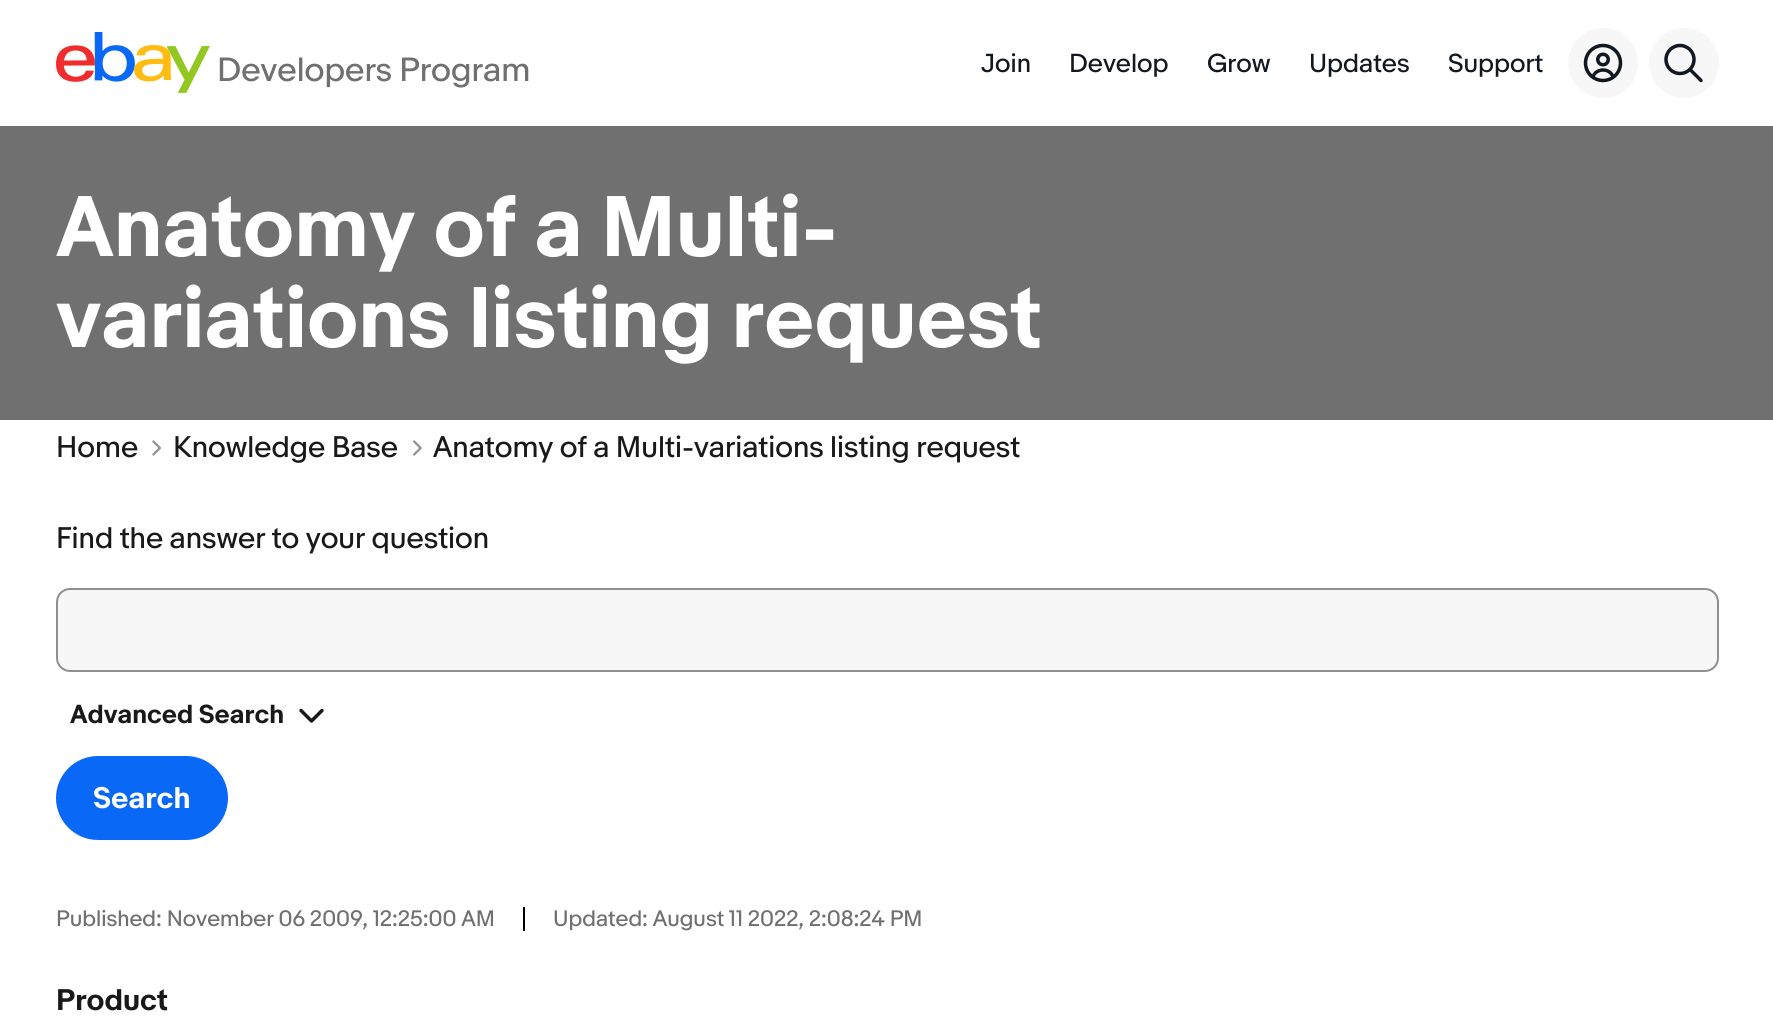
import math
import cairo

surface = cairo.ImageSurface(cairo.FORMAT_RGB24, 1773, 1023)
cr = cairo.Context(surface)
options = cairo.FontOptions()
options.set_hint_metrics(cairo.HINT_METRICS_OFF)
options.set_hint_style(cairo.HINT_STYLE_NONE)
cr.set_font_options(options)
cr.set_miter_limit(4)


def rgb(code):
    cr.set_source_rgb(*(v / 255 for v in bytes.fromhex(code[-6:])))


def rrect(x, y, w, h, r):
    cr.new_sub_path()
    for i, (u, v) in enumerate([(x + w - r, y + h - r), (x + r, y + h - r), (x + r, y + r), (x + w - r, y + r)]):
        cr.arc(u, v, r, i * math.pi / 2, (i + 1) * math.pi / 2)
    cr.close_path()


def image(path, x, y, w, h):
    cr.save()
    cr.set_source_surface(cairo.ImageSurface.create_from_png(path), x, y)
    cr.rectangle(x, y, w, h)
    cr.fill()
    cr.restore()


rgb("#ffffff")
cr.paint()
image("img/1.png", 56, 32, 154, 61)
rgb("#f7f7f7")
cr.arc(1603, 63, 35, 0, 2 * math.pi)
cr.fill()
image("img/2.png", 1583, 43, 40, 40)
cr.arc(1684, 63, 35, 0, 2 * math.pi)
cr.fill()
image("img/3.png", 1664, 43, 39, 40)
rgb("#707070")
cr.rectangle(0, 126, 1773, 294)
cr.fill()
image("img/4.png", 152, 440, 9, 16)
image("img/5.png", 413, 440, 9, 16)
rgb("#f7f7f7")
rrect(57, 589, 1661, 82, 13)
cr.fill_preserve()
rgb("#8f8f8f")
cr.stroke()
image("img/6.png", 299, 708, 25, 15)
rgb("#0968f6")
rrect(57, 757, 170, 82, 41)
cr.fill_preserve()
cr.stroke()
rgb("#000000")
cr.rectangle(523, 907, 2, 24)
cr.fill()
cr.select_font_face("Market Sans")
cr.set_font_size(31.5)
rgb("#707070")
cr.move_to(217, 81)
cr.show_text("Developers Program")
cr.set_font_size(24.5)
rgb("#111820")
for x, y, s in [
    (981, 72, "Join"),
    (1069, 72, "Develop"),
    (1207, 72, "Grow"),
    (1309, 72, "Updates"),
    (1448, 72, "Support"),
]:
    cr.move_to(x, y)
    cr.show_text(s)
cr.select_font_face("Market Sans", cairo.FONT_SLANT_NORMAL, cairo.FONT_WEIGHT_BOLD)
cr.set_font_size(80.5)
rgb("#ffffff")
cr.move_to(56, 256)
cr.show_text("Anatomy of a Multi-")
cr.move_to(56, 347)
cr.show_text("variations listing request")
cr.select_font_face("Market Sans")
cr.set_font_size(28)
rgb("#191919")
for x, y, s in [
    (56, 457, "Home"),
    (173, 457, "Knowledge Base"),
    (433, 457, "Anatomy of a Multi-variations listing request"),
    (56, 548, "Find the answer to your question"),
]:
    cr.move_to(x, y)
    cr.show_text(s)
cr.select_font_face("Market Sans", cairo.FONT_SLANT_NORMAL, cairo.FONT_WEIGHT_BOLD)
cr.set_font_size(24.5)
cr.move_to(70, 723)
cr.show_text("Advanced Search")
cr.set_font_size(28)
rgb("#ffffff")
cr.move_to(93, 808)
cr.show_text("Search")
cr.select_font_face("Market Sans")
cr.set_font_size(21)
rgb("#707070")
cr.move_to(56, 926)
cr.show_text("Published: November 06 2009, 12:25:00 AM")
cr.move_to(553, 926)
cr.show_text("Updated: August 11 2022, 2:08:24 PM")
cr.select_font_face("Market Sans", cairo.FONT_SLANT_NORMAL, cairo.FONT_WEIGHT_BOLD)
cr.set_font_size(28)
rgb("#191919")
cr.move_to(56, 1010)
cr.show_text("Product")
surface.write_to_png("page.png")
